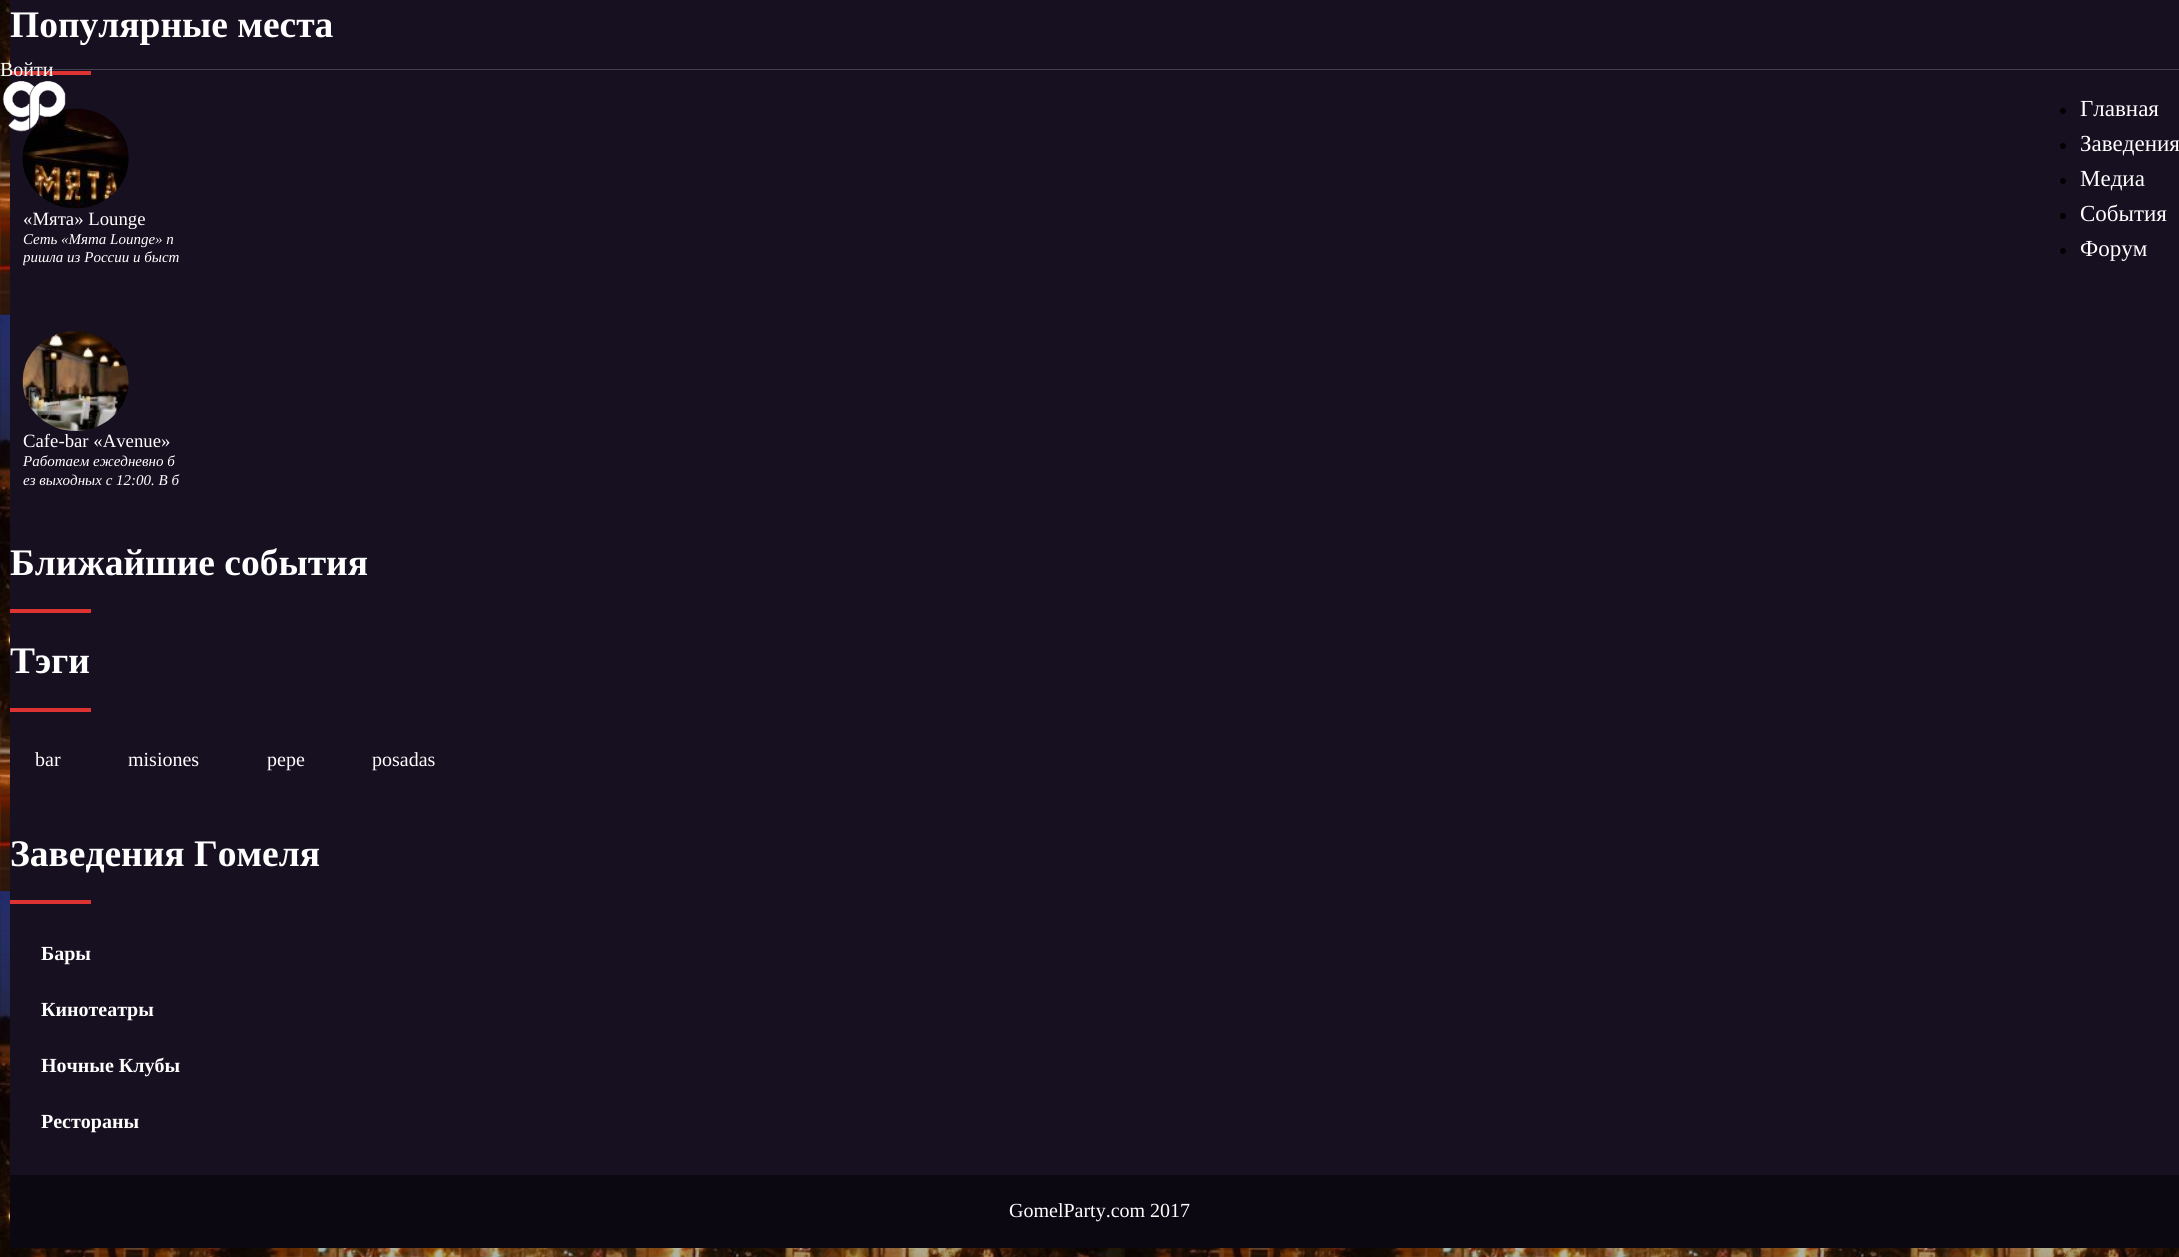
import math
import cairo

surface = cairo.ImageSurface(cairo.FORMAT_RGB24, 2179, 1257)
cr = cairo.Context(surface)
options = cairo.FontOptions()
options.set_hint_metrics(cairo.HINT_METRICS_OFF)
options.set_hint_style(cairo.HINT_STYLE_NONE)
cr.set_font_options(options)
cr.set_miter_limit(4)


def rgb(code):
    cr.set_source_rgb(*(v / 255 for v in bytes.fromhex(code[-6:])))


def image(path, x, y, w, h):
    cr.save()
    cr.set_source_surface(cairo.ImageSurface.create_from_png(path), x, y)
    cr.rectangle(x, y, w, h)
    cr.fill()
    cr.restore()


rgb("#ffffff")
cr.paint()
image("img/1.png", 0, 0, 2179, 1257)
rgb("#171021")
cr.rectangle(10, 0, 2169, 1175)
cr.fill()
rgb("#dd3333")
cr.rectangle(10, 71, 81, 4)
cr.fill()
image("img/2.png", 22, 108, 107, 101)
image("img/3.png", 22, 331, 107, 100)
cr.rectangle(10, 609, 81, 4)
cr.rectangle(10, 708, 81, 4)
cr.rectangle(10, 900, 81, 4)
cr.fill()
rgb("#0c0811")
cr.rectangle(10, 1175, 2169, 73)
cr.fill()
cr.set_source_rgba(1, 1, 1, 0.2)
cr.rectangle(0, 69, 2179, 1)
cr.fill()
image("img/4.png", 2, 81, 64, 51)
rgb("#000000")
cr.arc(2063, 111, 3, 0, 2 * math.pi)
cr.fill()
cr.arc(2063, 146, 3, 0, 2 * math.pi)
cr.fill()
cr.arc(2063, 181, 3, 0, 2 * math.pi)
cr.fill()
cr.arc(2063, 216, 3, 0, 2 * math.pi)
cr.fill()
cr.arc(2063, 251, 3, 0, 2 * math.pi)
cr.fill()
cr.select_font_face("Liberation Serif", cairo.FONT_SLANT_NORMAL, cairo.FONT_WEIGHT_BOLD)
cr.set_font_size(37.5)
rgb("#ffffff")
cr.move_to(10, 37)
cr.show_text("Популярные места")
cr.select_font_face("Liberation Serif")
cr.set_font_size(18.75)
cr.move_to(23, 225)
cr.show_text("«Мята» Lounge")
cr.select_font_face("Liberation Serif", cairo.FONT_SLANT_ITALIC)
cr.set_font_size(15)
cr.move_to(23, 244)
cr.show_text("Сеть «Мята Lounge» п")
cr.save()
cr.rectangle(23, 230, 157, 45)
cr.clip()
cr.move_to(23, 262)
cr.show_text("ришла из России и быст")
cr.restore()
cr.select_font_face("Liberation Serif")
cr.set_font_size(18.75)
cr.move_to(23, 447)
cr.show_text("Cafe-bar «Avenue»")
cr.select_font_face("Liberation Serif", cairo.FONT_SLANT_ITALIC)
cr.set_font_size(15)
cr.move_to(23, 466)
cr.show_text("Работаем ежедневно б")
cr.move_to(23, 485)
cr.show_text("ез выходных с 12:00. В б")
cr.select_font_face("Liberation Serif", cairo.FONT_SLANT_NORMAL, cairo.FONT_WEIGHT_BOLD)
cr.set_font_size(37.5)
cr.move_to(10, 575)
cr.show_text("Ближайшие события")
cr.move_to(10, 673)
cr.show_text("Тэги")
cr.select_font_face("Liberation Serif")
cr.set_font_size(20)
for x, y, s in [
    (35, 766, "bar"),
    (128, 766, "misiones"),
    (267, 766, "pepe"),
    (372, 766, "posadas"),
]:
    cr.move_to(x, y)
    cr.show_text(s)
cr.select_font_face("Liberation Serif", cairo.FONT_SLANT_NORMAL, cairo.FONT_WEIGHT_BOLD)
cr.set_font_size(37.5)
cr.move_to(10, 866)
cr.show_text("Заведения Гомеля")
cr.set_font_size(20)
for x, y, s in [
    (41, 960, "Бары"),
    (41, 1016, "Кинотеатры"),
    (41, 1072, "Ночные Клубы"),
    (41, 1128, "Рестораны"),
]:
    cr.move_to(x, y)
    cr.show_text(s)
cr.select_font_face("Liberation Serif")
cr.move_to(1009, 1217)
cr.show_text("GomelParty.com 2017")
cr.move_to(0, 76)
cr.show_text("Войти")
cr.set_font_size(23)
for x, y, s in [
    (2080, 116, "Главная"),
    (2080, 151, "Заведения"),
    (2080, 186, "Медиа"),
    (2080, 221, "События"),
    (2080, 256, "Форум"),
]:
    cr.move_to(x, y)
    cr.show_text(s)
surface.write_to_png("page.png")
